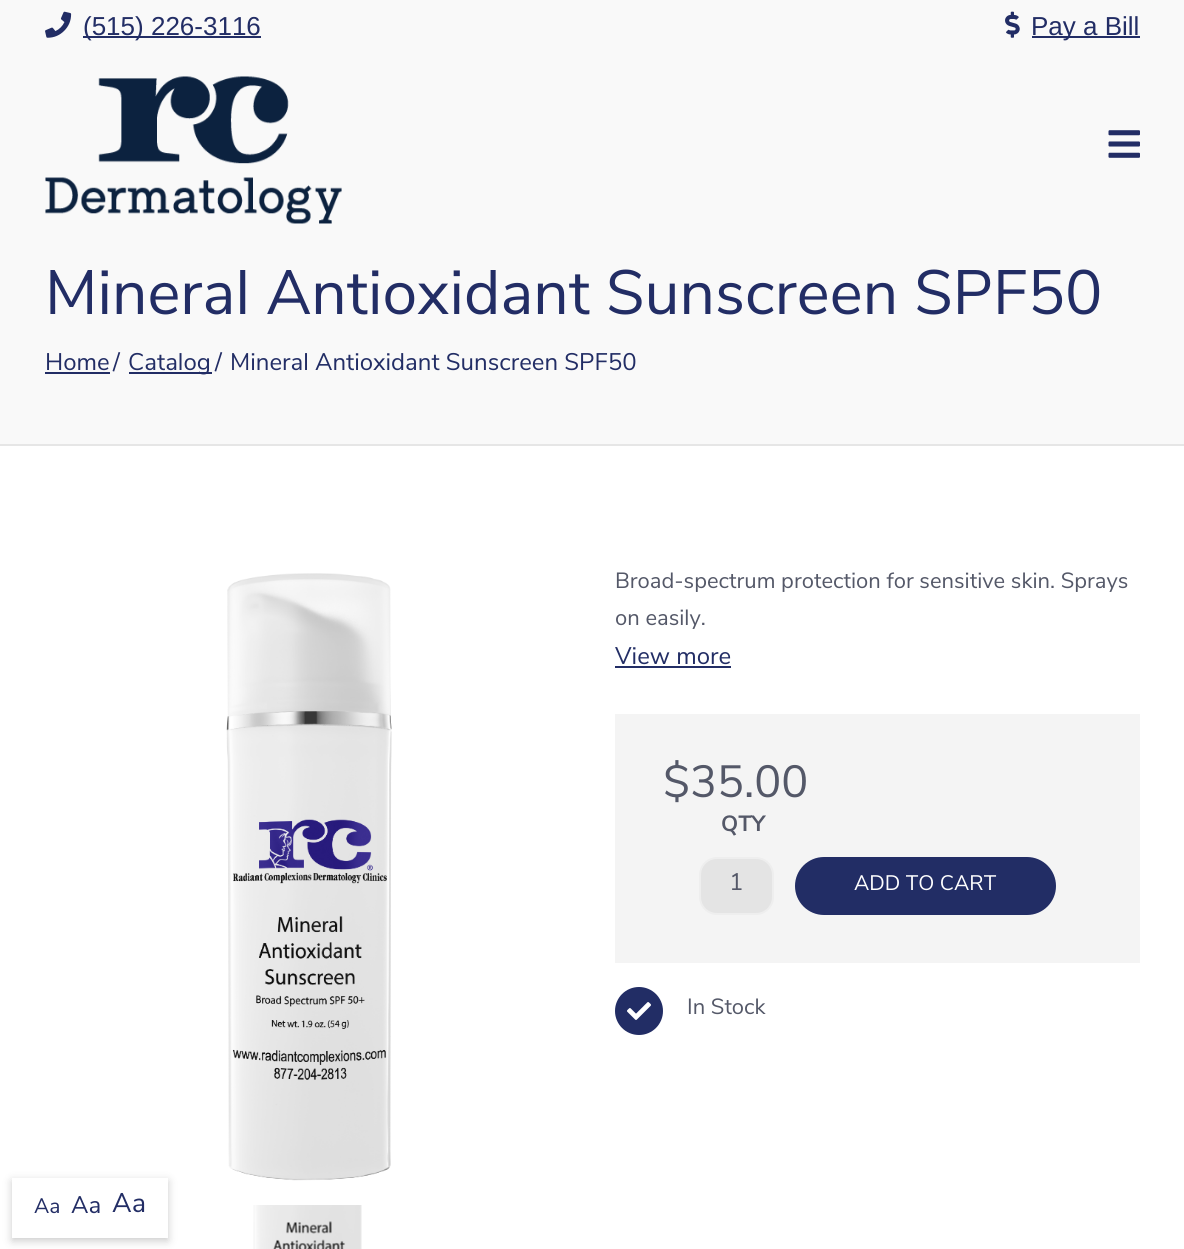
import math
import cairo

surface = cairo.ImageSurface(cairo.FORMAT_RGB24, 1184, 1249)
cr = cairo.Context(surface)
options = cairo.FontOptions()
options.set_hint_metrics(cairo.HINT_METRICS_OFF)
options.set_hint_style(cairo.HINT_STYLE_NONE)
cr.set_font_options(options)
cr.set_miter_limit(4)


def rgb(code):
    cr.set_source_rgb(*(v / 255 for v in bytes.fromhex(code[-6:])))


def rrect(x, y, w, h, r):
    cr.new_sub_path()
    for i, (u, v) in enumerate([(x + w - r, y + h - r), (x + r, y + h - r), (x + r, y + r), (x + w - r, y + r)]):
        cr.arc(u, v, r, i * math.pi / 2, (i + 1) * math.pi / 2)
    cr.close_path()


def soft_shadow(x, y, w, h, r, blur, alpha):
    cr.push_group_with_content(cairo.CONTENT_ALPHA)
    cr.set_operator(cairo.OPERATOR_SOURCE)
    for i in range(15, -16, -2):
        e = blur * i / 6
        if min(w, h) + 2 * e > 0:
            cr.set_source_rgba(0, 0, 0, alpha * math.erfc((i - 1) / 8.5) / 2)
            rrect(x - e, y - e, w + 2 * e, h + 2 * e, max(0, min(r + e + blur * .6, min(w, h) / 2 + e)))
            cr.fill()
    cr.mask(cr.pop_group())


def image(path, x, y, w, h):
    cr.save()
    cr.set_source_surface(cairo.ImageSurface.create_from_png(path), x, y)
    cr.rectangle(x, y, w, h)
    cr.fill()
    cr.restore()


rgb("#ffffff")
cr.paint()
rgb("#f9f9f9")
cr.rectangle(0, 0, 1184, 444)
cr.fill()
image("img/1.png", 45, 11, 27, 27)
rgb("#222d65")
cr.rectangle(83, 36, 178, 2)
cr.fill()
image("img/2.png", 1005, 11, 15, 27)
cr.rectangle(1032, 36, 108, 2)
cr.fill()
image("img/3.png", 45, 76, 297, 148)
image("img/4.png", 1108, 130, 32, 28)
for x, y, w, h, color in [
    (0, 444, 1184, 2, "#e6e6e6"),
    (45, 372, 65, 2, "#222d65"),
    (129, 372, 83, 2, "#222d65"),
]:
    rgb(color)
    cr.rectangle(x, y, w, h)
    cr.fill()
image("img/5.png", 226, 573, 166, 608)
image("img/6.png", 253, 1205, 109, 44)
cr.rectangle(615, 666, 116, 2)
cr.fill()
rgb("#f4f4f4")
cr.rectangle(615, 714, 525, 249)
cr.fill()
rgb("#e4e4e4")
rrect(700, 858, 73, 56, 17)
cr.fill_preserve()
rgb("#eeeeee")
cr.stroke()
rgb("#222d65")
rrect(795, 857, 261, 58, 29)
cr.fill()
cr.arc(639, 1011, 24, 0, 2 * math.pi)
cr.fill()
image("img/7.png", 627, 1002, 24, 18)
rgb("#000000")
soft_shadow(12, 1181, 156, 60, 0, 4.5, 0.2)
rgb("#ffffff")
cr.rectangle(12, 1178, 156, 60)
cr.fill()
cr.select_font_face("Liberation Sans")
cr.set_font_size(26)
rgb("#222d65")
cr.move_to(83, 35)
cr.show_text("(515) 226-3116")
cr.move_to(1031, 35)
cr.show_text("Pay a Bill")
cr.select_font_face("Nunito Sans")
cr.set_font_size(62.4)
cr.move_to(45, 314)
cr.show_text("Mineral Antioxidant Sunscreen SPF50")
cr.set_font_size(24)
for x, y, s in [
    (45, 370, "Home"),
    (113, 370, "/"),
    (128, 370, "Catalog"),
    (215, 370, "/"),
    (230, 370, "Mineral Antioxidant Sunscreen SPF50"),
]:
    cr.move_to(x, y)
    cr.show_text(s)
cr.set_font_size(22)
rgb("#545868")
cr.move_to(615, 588)
cr.show_text("Broad-spectrum protection for sensitive skin. Sprays")
cr.move_to(615, 625)
cr.show_text("on easily.")
cr.set_font_size(24)
rgb("#222d65")
cr.move_to(615, 664)
cr.show_text("View more")
cr.set_font_size(45)
rgb("#545868")
cr.move_to(663, 797)
cr.show_text("$35.00")
cr.select_font_face("Nunito Sans", cairo.FONT_SLANT_NORMAL, cairo.FONT_WEIGHT_BOLD)
cr.set_font_size(22)
cr.move_to(721, 831)
cr.show_text("QTY")
cr.select_font_face("Nunito Sans")
cr.set_font_size(24)
cr.move_to(729, 890)
cr.show_text("1")
cr.set_font_size(21)
rgb("#ffffff")
cr.move_to(854, 890)
cr.show_text("ADD TO CART")
cr.set_font_size(22)
rgb("#545868")
cr.move_to(687, 1014)
cr.show_text("In Stock")
cr.set_font_size(21)
rgb("#222d65")
cr.move_to(34, 1213)
cr.show_text("Aa")
cr.set_font_size(24)
cr.move_to(71, 1213)
cr.show_text("Aa")
cr.set_font_size(27)
cr.move_to(112, 1212)
cr.show_text("Aa")
surface.write_to_png("page.png")
